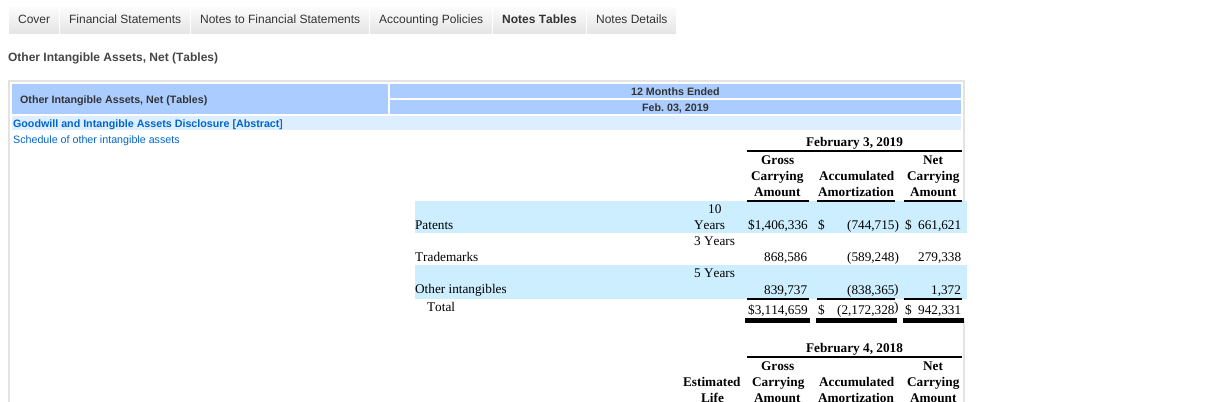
import math
import cairo

surface = cairo.ImageSurface(cairo.FORMAT_RGB24, 1212, 402)
cr = cairo.Context(surface)
options = cairo.FontOptions()
options.set_hint_metrics(cairo.HINT_METRICS_OFF)
options.set_hint_style(cairo.HINT_STYLE_NONE)
cr.set_font_options(options)
cr.set_miter_limit(4)


def rgb(code):
    cr.set_source_rgb(*(v / 255 for v in bytes.fromhex(code[-6:])))


rgb("#ffffff")
cr.paint()
gradient = cairo.LinearGradient(34, 4, 34, 34)
gradient.add_color_stop_rgba(0, 1, 1, 1, 1)
gradient.add_color_stop_rgba(1, 0.898, 0.898, 0.898, 1)
cr.set_source(gradient)
cr.rectangle(9, 7, 50, 27)
cr.fill()
gradient = cairo.LinearGradient(125, 4, 125, 34)
gradient.add_color_stop_rgba(0, 1, 1, 1, 1)
gradient.add_color_stop_rgba(1, 0.898, 0.898, 0.898, 1)
cr.set_source(gradient)
cr.rectangle(60, 7, 130, 27)
cr.fill()
gradient = cairo.LinearGradient(280, 4, 280, 34)
gradient.add_color_stop_rgba(0, 1, 1, 1, 1)
gradient.add_color_stop_rgba(1, 0.898, 0.898, 0.898, 1)
cr.set_source(gradient)
cr.rectangle(191, 7, 178, 27)
cr.fill()
gradient = cairo.LinearGradient(431, 4, 431, 34)
gradient.add_color_stop_rgba(0, 1, 1, 1, 1)
gradient.add_color_stop_rgba(1, 0.898, 0.898, 0.898, 1)
cr.set_source(gradient)
cr.rectangle(370, 7, 122, 27)
cr.fill()
gradient = cairo.LinearGradient(540, 4, 540, 34)
gradient.add_color_stop_rgba(0, 1, 1, 1, 1)
gradient.add_color_stop_rgba(1, 0.898, 0.898, 0.898, 1)
cr.set_source(gradient)
cr.rectangle(493, 7, 93, 27)
cr.fill()
gradient = cairo.LinearGradient(632, 4, 632, 34)
gradient.add_color_stop_rgba(0, 1, 1, 1, 1)
gradient.add_color_stop_rgba(1, 0.898, 0.898, 0.898, 1)
cr.set_source(gradient)
cr.rectangle(587, 7, 89, 27)
cr.fill()
cr.rectangle(9, 81, 955, 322)
rgb("#e3e3e3")
cr.stroke()
for x, y, w, h, color in [
    (390, 84, 571, 14, "#aaccff"),
    (12, 84, 376, 30, "#aaccff"),
    (390, 100, 571, 14, "#aaccff"),
    (12, 116, 949, 14, "#ddeeff"),
    (747, 150, 215, 2, "#000000"),
    (415, 201, 552, 32, "#cceeff"),
    (747, 200, 62, 2, "#000000"),
    (817, 200, 78, 2, "#000000"),
    (904, 200, 58, 2, "#000000"),
    (963, 233, 2, 32, "#ffffff"),
    (415, 265, 552, 34, "#cceeff"),
    (747, 298, 62, 2, "#000000"),
    (817, 298, 78, 2, "#000000"),
    (904, 298, 58, 2, "#000000"),
    (963, 299, 2, 21, "#ffffff"),
    (816, 318, 81, 5, "#000000"),
    (903, 318, 61, 5, "#000000"),
    (745, 318, 65, 5, "#000000"),
    (747, 356, 215, 2, "#000000"),
]:
    rgb(color)
    cr.rectangle(x, y, w, h)
    cr.fill()
cr.select_font_face("Liberation Sans")
cr.set_font_size(12)
rgb("#333333")
for x, y, s in [
    (18, 23, "Cover"),
    (69, 23, "Financial Statements"),
    (200, 23, "Notes to Financial Statements"),
    (379, 23, "Accounting Policies"),
]:
    cr.move_to(x, y)
    cr.show_text(s)
cr.select_font_face("Liberation Sans", cairo.FONT_SLANT_NORMAL, cairo.FONT_WEIGHT_BOLD)
cr.move_to(502, 23)
cr.show_text("Notes Tables")
cr.select_font_face("Liberation Sans")
cr.move_to(596, 23)
cr.show_text("Notes Details")
cr.select_font_face("Liberation Sans", cairo.FONT_SLANT_NORMAL, cairo.FONT_WEIGHT_BOLD)
rgb("#454545")
cr.move_to(8, 61)
cr.show_text("Other Intangible Assets, Net (Tables)")
cr.set_font_size(10.7)
rgb("#333333")
for x, y, s in [
    (631, 95, "12 Months Ended"),
    (20, 103, "Other Intangible Assets, Net (Tables)"),
    (642, 111, "Feb. 03, 2019"),
]:
    cr.move_to(x, y)
    cr.show_text(s)
rgb("#0066cc")
cr.move_to(13, 127)
cr.show_text("Goodwill and Intangible Assets Disclosure [Abstract]")
cr.select_font_face("Liberation Sans")
cr.move_to(13, 143)
cr.show_text("Schedule of other intangible assets")
cr.select_font_face("Liberation Serif", cairo.FONT_SLANT_NORMAL, cairo.FONT_WEIGHT_BOLD)
cr.set_font_size(13.25)
rgb("#000000")
for x, y, s in [
    (806, 146, "February 3, 2019"),
    (761, 164, "Gross"),
    (751, 180, "Carrying"),
    (754, 196, "Amount"),
    (819, 180, "Accumulated"),
    (818, 196, "Amortization"),
    (923, 164, "Net"),
    (907, 180, "Carrying"),
    (910, 196, "Amount"),
]:
    cr.move_to(x, y)
    cr.show_text(s)
cr.select_font_face("Liberation Serif")
for x, y, s in [
    (415, 229, "Patents"),
    (708, 213, "10"),
    (694, 229, "Years"),
    (748, 229, "$1,406,336"),
    (818, 229, "$"),
    (847, 229, "(744,715)"),
    (905, 229, "$"),
    (918, 229, "661,621"),
    (694, 245, "3 Years"),
    (415, 261, "Trademarks"),
    (764, 261, "868,586"),
    (847, 261, "(589,248)"),
    (918, 261, "279,338"),
    (694, 277, "5 Years"),
    (415, 293, "Other intangibles"),
    (764, 294, "839,737"),
    (847, 294, "(838,365"),
    (894, 293, ")"),
    (931, 294, "1,372"),
    (427, 311, "Total"),
    (748, 314, "$3,114,659"),
    (818, 314, "$"),
    (837, 314, "(2,172,328"),
    (894, 311, ")"),
    (905, 314, "$"),
    (918, 314, "942,331"),
]:
    cr.move_to(x, y)
    cr.show_text(s)
cr.select_font_face("Liberation Serif", cairo.FONT_SLANT_NORMAL, cairo.FONT_WEIGHT_BOLD)
for x, y, s in [
    (806, 352, "February 4, 2018"),
    (683, 386, "Estimated"),
    (701, 402, "Life"),
    (761, 370, "Gross"),
    (752, 386, "Carrying"),
    (754, 402, "Amount"),
    (819, 386, "Accumulated"),
    (818, 402, "Amortization"),
    (923, 370, "Net"),
    (907, 386, "Carrying"),
    (910, 402, "Amount"),
]:
    cr.move_to(x, y)
    cr.show_text(s)
surface.write_to_png("page.png")
